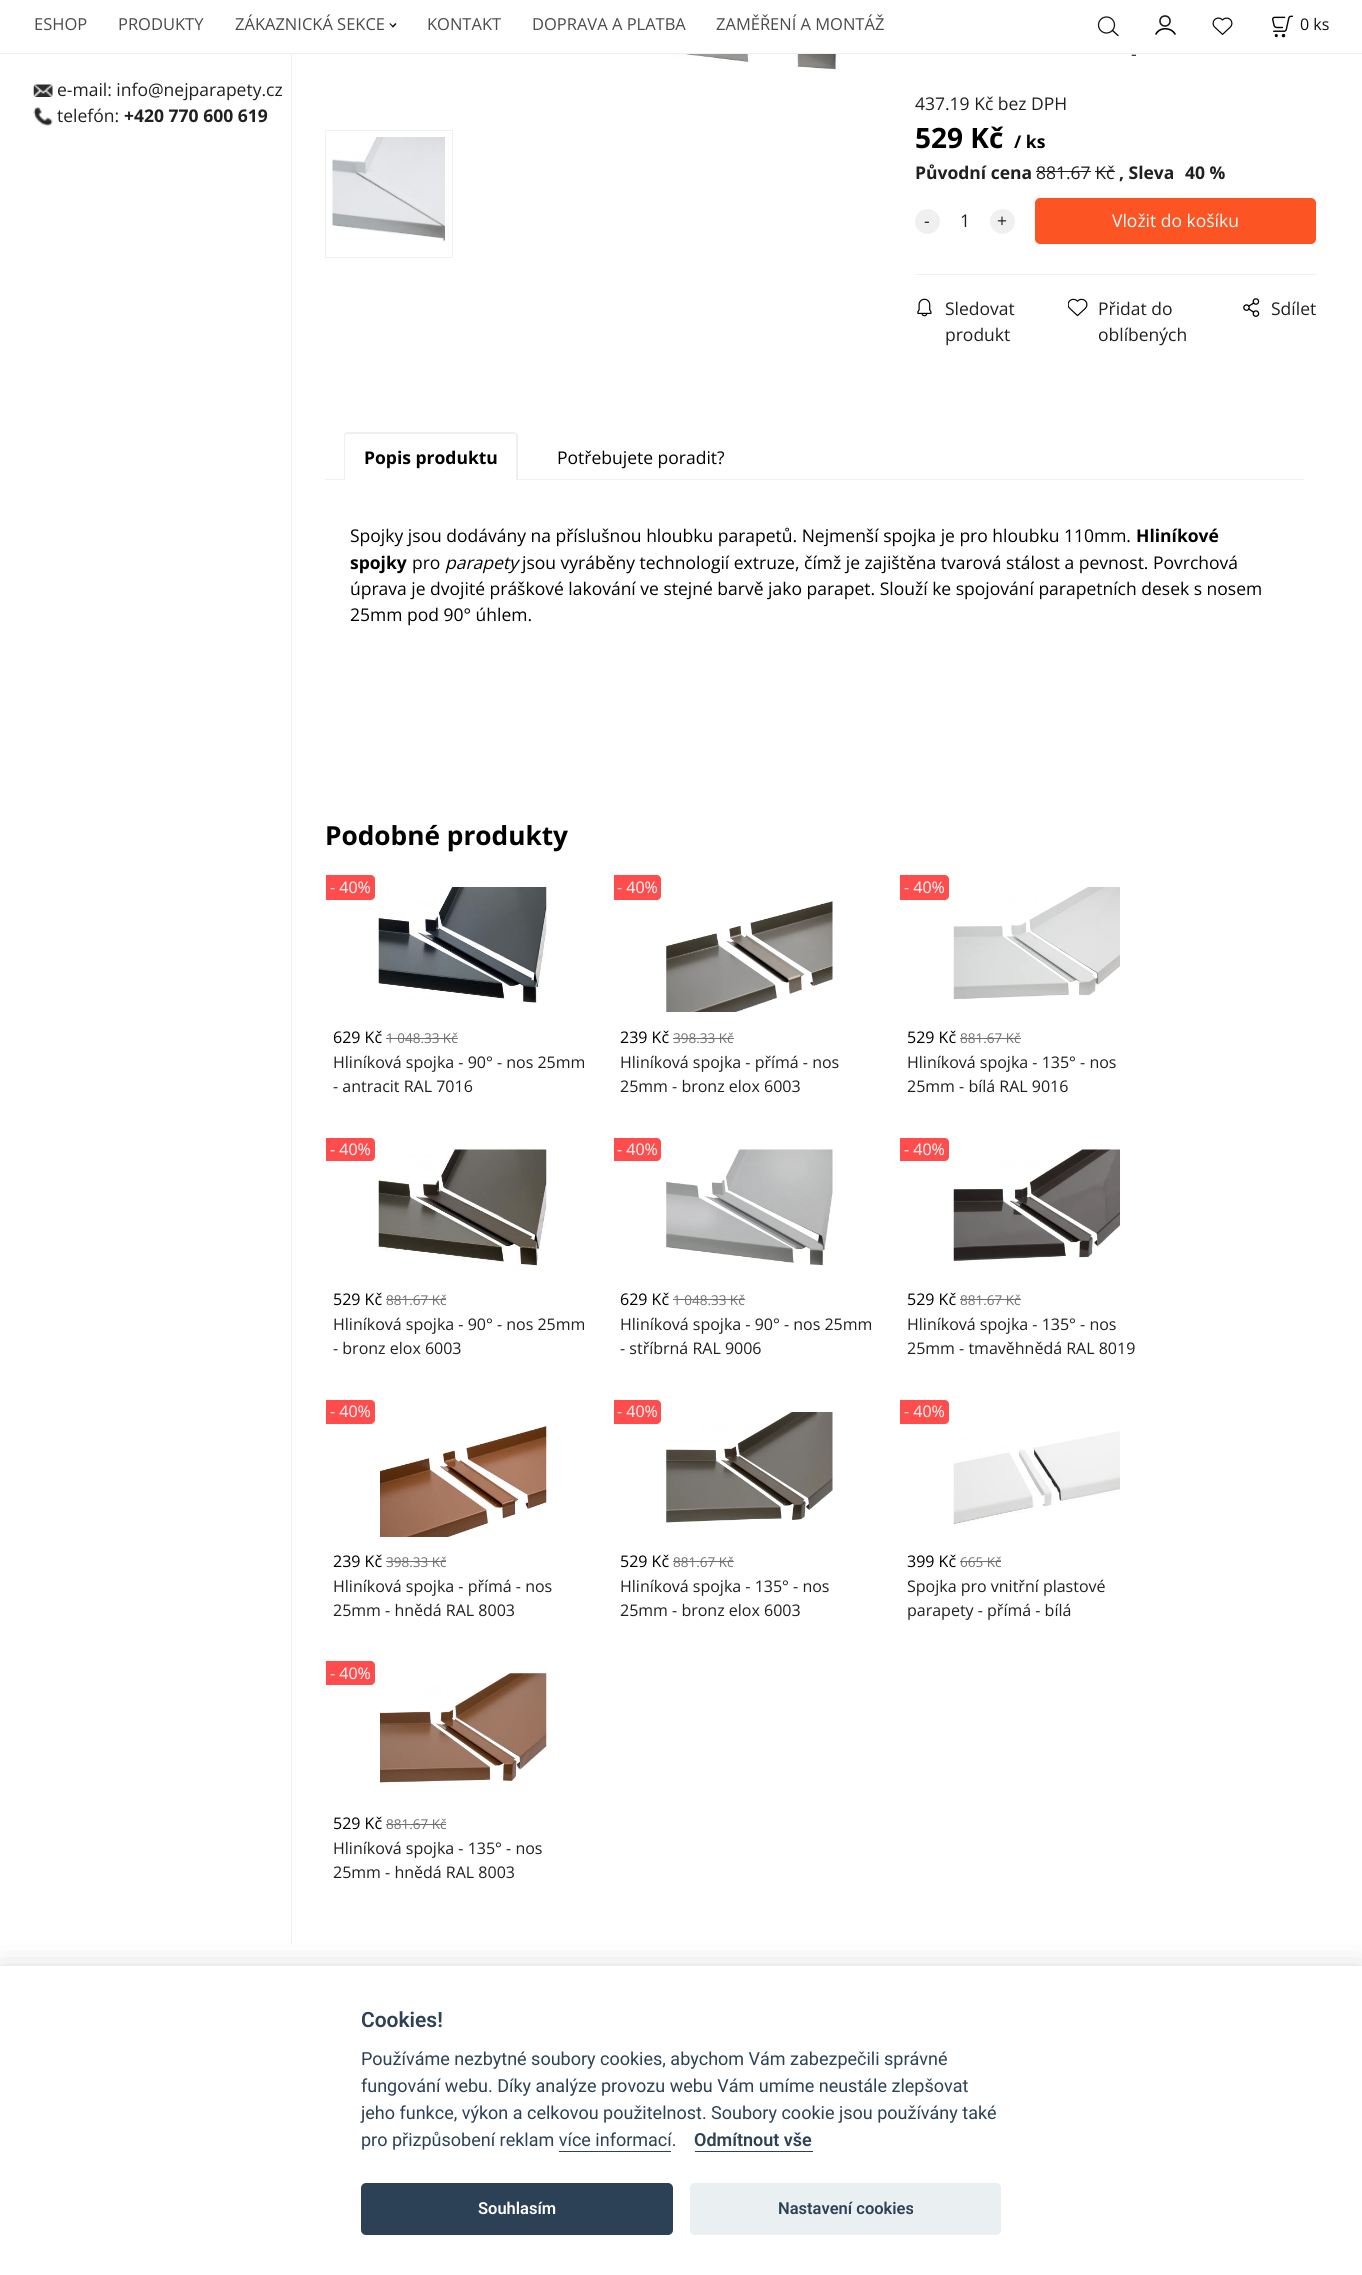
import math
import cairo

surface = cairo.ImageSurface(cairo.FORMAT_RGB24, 1362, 2275)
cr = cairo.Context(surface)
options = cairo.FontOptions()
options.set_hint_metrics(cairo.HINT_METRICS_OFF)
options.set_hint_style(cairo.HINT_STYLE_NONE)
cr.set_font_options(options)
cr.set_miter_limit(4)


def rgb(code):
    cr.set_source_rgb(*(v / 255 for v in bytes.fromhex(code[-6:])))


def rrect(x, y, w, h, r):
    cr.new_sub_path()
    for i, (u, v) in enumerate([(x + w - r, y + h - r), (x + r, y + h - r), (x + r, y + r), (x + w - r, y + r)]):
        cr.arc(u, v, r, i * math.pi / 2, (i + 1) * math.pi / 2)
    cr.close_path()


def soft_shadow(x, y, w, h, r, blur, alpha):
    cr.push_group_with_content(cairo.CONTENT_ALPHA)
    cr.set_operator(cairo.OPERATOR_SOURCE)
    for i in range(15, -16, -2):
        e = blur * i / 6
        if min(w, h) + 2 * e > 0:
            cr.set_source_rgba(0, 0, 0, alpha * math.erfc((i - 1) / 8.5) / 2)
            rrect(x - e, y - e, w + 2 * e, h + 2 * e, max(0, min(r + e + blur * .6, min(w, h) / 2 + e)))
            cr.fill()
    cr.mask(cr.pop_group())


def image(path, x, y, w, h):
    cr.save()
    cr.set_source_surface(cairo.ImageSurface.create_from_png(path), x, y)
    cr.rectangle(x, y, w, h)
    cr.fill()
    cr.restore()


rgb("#ffffff")
cr.paint()
rgb("#efefef")
cr.rectangle(0, 53, 1362, 1)
cr.fill()
rgb("#000000")
cr.new_path()
cr.move_to(392, 26.5)
cr.line_to(395.5, 23)
cr.line_to(396.5, 24)
cr.line_to(393, 27.5)
cr.close_path()
cr.fill()
cr.new_path()
cr.move_to(389.5, 24)
cr.line_to(390, 23)
cr.line_to(393.5, 26.5)
cr.line_to(393, 27.5)
cr.close_path()
cr.fill()
cr.arc(1106.5, 25, 8, 0, 2 * math.pi)
rgb("#191919")
cr.set_line_width(1.3)
cr.stroke()
cr.new_path()
cr.move_to(1112.5, 30.5)
cr.line_to(1118, 35.5)
rgb("#000000")
cr.set_line_cap(cairo.LINE_CAP_ROUND)
cr.stroke()
cr.arc(1165, 21, 5, 0, 2 * math.pi)
rgb("#191919")
cr.set_line_width(1.6)
cr.set_line_cap(cairo.LINE_CAP_BUTT)
cr.stroke()
cr.save()
cr.rectangle(1154, 15, 25, 20)
cr.clip()
cr.new_path()
cr.move_to(1180, 34)
cr.curve_to(1183.5, 27, 1195, 27, 1199, 34)
rgb("#000000")
cr.set_line_width(2.2)
cr.set_line_cap(cairo.LINE_CAP_ROUND)
cr.stroke()
cr.restore()
cr.new_path()
cr.move_to(1156, 34)
cr.curve_to(1159.5, 27, 1171, 27, 1175, 34)
rgb("#000000")
cr.set_line_cap(cairo.LINE_CAP_ROUND)
cr.stroke()
image("img/1.png", 1212, 17, 21, 18)
image("img/2.png", 1272, 15, 21, 23)
rgb("#efefef")
cr.rectangle(291, 54, 1, 1890)
cr.fill()
image("img/3.png", 33, 84, 20, 13)
image("img/4.png", 33, 107, 20, 19)
image("img/5.png", 367, 54, 478, 18)
cr.rectangle(325.5, 130.5, 127, 127)
rgb("#f0f0f0")
cr.set_line_width(1)
cr.set_line_cap(cairo.LINE_CAP_BUTT)
cr.stroke()
image("img/6.png", 332, 137, 113, 105)
rgb("#202020")
cr.rectangle(1036, 171, 55, 1)
cr.fill()
cr.rectangle(1095, 171, 20, 1)
cr.fill()
rgb("#f0f0f0")
cr.arc(927.5, 221.5, 12.5, 0, 2 * math.pi)
cr.fill()
cr.arc(1002.5, 221.5, 12.5, 0, 2 * math.pi)
cr.fill()
rgb("#fc5423")
rrect(1035, 198, 281, 46, 5)
cr.fill()
rgb("#f0f0f0")
cr.rectangle(915, 274, 401, 1)
cr.fill()
image("img/7.png", 917, 298, 15, 19)
image("img/8.png", 1068, 298, 20, 19)
image("img/9.png", 1243, 298, 17, 19)
rgb("#efefef")
cr.rectangle(325, 479, 979, 1)
cr.fill()
rgb("#ffffff")
cr.new_path()
cr.move_to(348, 433)
cr.line_to(514, 433)
cr.curve_to(516, 433, 518, 435, 518, 437)
cr.line_to(518, 480)
cr.line_to(344, 480)
cr.line_to(344, 437)
cr.curve_to(344, 435, 346, 433, 348, 433)
cr.close_path()
cr.fill()
rgb("#efefef")
cr.set_fill_rule(cairo.FILL_RULE_EVEN_ODD)
cr.new_path()
cr.move_to(348, 432)
cr.line_to(514, 432)
cr.curve_to(516, 432, 518, 434, 518, 436)
cr.line_to(518, 480)
cr.line_to(344, 480)
cr.line_to(344, 436)
cr.curve_to(344, 434, 345, 432, 348, 432)
cr.close_path()
cr.move_to(348, 434)
cr.line_to(514, 434)
cr.curve_to(515, 434, 516, 435, 516, 436)
cr.line_to(516, 480)
cr.line_to(345, 480)
cr.line_to(345, 436)
cr.curve_to(345, 435, 346, 434, 348, 434)
cr.close_path()
cr.fill()
rgb("#ff4d4d")
cr.new_path()
cr.move_to(326, 875)
cr.line_to(371, 875)
cr.curve_to(373, 875, 375, 877, 375, 879)
cr.line_to(375, 896)
cr.curve_to(375, 898, 373, 900, 371, 900)
cr.line_to(326, 900)
cr.close_path()
cr.fill()
image("img/10.png", 378, 887, 169, 117)
rgb("#707070")
cr.rectangle(386, 1038, 72, 1)
cr.fill()
rgb("#ff4d4d")
cr.new_path()
cr.move_to(614, 875)
cr.line_to(657, 875)
cr.curve_to(659, 875, 661, 877, 661, 879)
cr.line_to(661, 896)
cr.curve_to(661, 898, 659, 900, 657, 900)
cr.line_to(614, 900)
cr.close_path()
cr.fill()
image("img/11.png", 666, 901, 167, 111)
rgb("#707070")
cr.rectangle(673, 1038, 61, 1)
cr.fill()
rgb("#ff4d4d")
cr.new_path()
cr.move_to(900, 875)
cr.line_to(945, 875)
cr.curve_to(947, 875, 949, 877, 949, 879)
cr.line_to(949, 896)
cr.curve_to(949, 898, 947, 900, 945, 900)
cr.line_to(900, 900)
cr.close_path()
cr.fill()
image("img/12.png", 953, 887, 167, 112)
rgb("#707070")
cr.rectangle(960, 1038, 61, 1)
cr.fill()
rgb("#ff4d4d")
cr.new_path()
cr.move_to(326, 1138)
cr.line_to(371, 1138)
cr.curve_to(373, 1138, 375, 1140, 375, 1142)
cr.line_to(375, 1157)
cr.curve_to(375, 1159, 373, 1161, 371, 1161)
cr.line_to(326, 1161)
cr.close_path()
cr.fill()
image("img/13.png", 378, 1149, 169, 122)
rgb("#707070")
cr.rectangle(386, 1299, 60, 1)
cr.fill()
rgb("#ff4d4d")
cr.new_path()
cr.move_to(614, 1138)
cr.line_to(657, 1138)
cr.curve_to(659, 1138, 661, 1140, 661, 1142)
cr.line_to(661, 1157)
cr.curve_to(661, 1159, 659, 1161, 657, 1161)
cr.line_to(614, 1161)
cr.close_path()
cr.fill()
image("img/14.png", 666, 1149, 167, 117)
rgb("#707070")
cr.rectangle(673, 1299, 72, 1)
cr.fill()
rgb("#ff4d4d")
cr.new_path()
cr.move_to(900, 1138)
cr.line_to(945, 1138)
cr.curve_to(947, 1138, 949, 1140, 949, 1142)
cr.line_to(949, 1157)
cr.curve_to(949, 1159, 947, 1161, 945, 1161)
cr.line_to(900, 1161)
cr.close_path()
cr.fill()
image("img/15.png", 953, 1149, 167, 112)
rgb("#707070")
cr.rectangle(960, 1299, 61, 1)
cr.fill()
rgb("#ff4d4d")
cr.new_path()
cr.move_to(326, 1400)
cr.line_to(371, 1400)
cr.curve_to(373, 1400, 375, 1402, 375, 1404)
cr.line_to(375, 1420)
cr.curve_to(375, 1422, 373, 1424, 371, 1424)
cr.line_to(326, 1424)
cr.close_path()
cr.fill()
image("img/16.png", 380, 1426, 167, 111)
rgb("#707070")
cr.rectangle(386, 1561, 60, 1)
cr.fill()
rgb("#ff4d4d")
cr.new_path()
cr.move_to(614, 1400)
cr.line_to(657, 1400)
cr.curve_to(659, 1400, 661, 1402, 661, 1404)
cr.line_to(661, 1420)
cr.curve_to(661, 1422, 659, 1424, 657, 1424)
cr.line_to(614, 1424)
cr.close_path()
cr.fill()
image("img/17.png", 666, 1412, 167, 111)
rgb("#707070")
cr.rectangle(673, 1561, 61, 1)
cr.fill()
rgb("#ff4d4d")
cr.new_path()
cr.move_to(900, 1400)
cr.line_to(945, 1400)
cr.curve_to(947, 1400, 949, 1402, 949, 1404)
cr.line_to(949, 1420)
cr.curve_to(949, 1422, 947, 1424, 945, 1424)
cr.line_to(900, 1424)
cr.close_path()
cr.fill()
image("img/18.png", 953, 1431, 167, 94)
rgb("#707070")
cr.rectangle(960, 1561, 41, 1)
cr.fill()
rgb("#ff4d4d")
cr.new_path()
cr.move_to(326, 1661)
cr.line_to(371, 1661)
cr.curve_to(373, 1661, 375, 1663, 375, 1665)
cr.line_to(375, 1681)
cr.curve_to(375, 1683, 373, 1685, 371, 1685)
cr.line_to(326, 1685)
cr.close_path()
cr.fill()
image("img/19.png", 380, 1673, 167, 110)
rgb("#707070")
cr.rectangle(386, 1824, 60, 1)
cr.fill()
rgb("#020203")
soft_shadow(0, 1979, 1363, 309, 0, 19, 0.28)
for x, y, w, h, color in [
    (0, 1966, 1362, 309, "#ffffff"),
    (695, 2151, 118, 1, "#2d4156"),
    (559, 2151, 112, 1, "#2d4156"),
]:
    rgb(color)
    cr.rectangle(x, y, w, h)
    cr.fill()
rrect(361, 2183, 312, 52, 5)
cr.fill()
rgb("#eaeff2")
rrect(690, 2183, 311, 52, 5)
cr.fill()
cr.select_font_face("Open Sans")
cr.set_font_size(16.5)
rgb("#4b4b4b")
for x, y, s in [
    (34, 30, "ESHOP"),
    (118, 30, "PRODUKTY"),
    (235, 30, "ZÁKAZNICKÁ SEKCE"),
    (427, 30, "KONTAKT"),
    (532, 30, "DOPRAVA A PLATBA"),
    (716, 30, "ZAMĚŘENÍ A MONTÁŽ"),
]:
    cr.move_to(x, y)
    cr.show_text(s)
cr.set_font_size(16)
rgb("#101010")
cr.move_to(1300, 30)
cr.show_text("0 ks")
cr.set_font_size(17.5)
rgb("#202020")
cr.move_to(57, 96)
cr.show_text("e-mail: info@nejparapety.cz")
cr.move_to(57, 122)
cr.show_text("telefón:")
cr.select_font_face("Open Sans", cairo.FONT_SLANT_NORMAL, cairo.FONT_WEIGHT_BOLD)
cr.move_to(124, 122)
cr.show_text("+420 770 600 619")
cr.select_font_face("Open Sans")
rgb("#303030")
cr.move_to(1131, 60)
cr.show_text("-")
rgb("#202020")
cr.move_to(915, 110)
cr.show_text("437.19 Kč bez DPH")
cr.select_font_face("Open Sans", cairo.FONT_SLANT_NORMAL, cairo.FONT_WEIGHT_BOLD)
cr.set_font_size(28)
rgb("#000000")
cr.move_to(915, 148)
cr.show_text("529 Kč")
cr.set_font_size(17.5)
cr.move_to(1014, 148)
cr.show_text("/ ks")
rgb("#202020")
cr.move_to(915, 179)
cr.show_text("Původní cena")
cr.select_font_face("Open Sans")
cr.move_to(1036, 179)
cr.show_text("881.67 Kč")
cr.select_font_face("Open Sans", cairo.FONT_SLANT_NORMAL, cairo.FONT_WEIGHT_BOLD)
cr.move_to(1119, 179)
cr.show_text(", Sleva")
cr.move_to(1185, 179)
cr.show_text("40 %")
cr.select_font_face("Open Sans")
for x, y, s in [
    (924, 227, "-"),
    (960, 227, "1"),
    (997, 227, "+"),
]:
    cr.move_to(x, y)
    cr.show_text(s)
rgb("#ffffff")
cr.move_to(1112, 227)
cr.show_text("Vložit do košíku")
rgb("#202020")
for x, y, s in [
    (945, 315, "Sledovat"),
    (945, 341, "produkt"),
    (1098, 315, "Přidat do"),
    (1098, 341, "oblíbených"),
    (1271, 315, "Sdílet"),
]:
    cr.move_to(x, y)
    cr.show_text(s)
cr.select_font_face("Open Sans", cairo.FONT_SLANT_NORMAL, cairo.FONT_WEIGHT_BOLD)
rgb("#000000")
cr.move_to(364, 464)
cr.show_text("Popis produktu")
cr.select_font_face("Open Sans")
cr.move_to(557, 464)
cr.show_text("Potřebujete poradit?")
cr.move_to(350, 542)
cr.show_text("Spojky jsou dodávány na příslušnou hloubku parapetů. Nejmenší spojka je pro hloubku 110mm.")
cr.select_font_face("Open Sans", cairo.FONT_SLANT_NORMAL, cairo.FONT_WEIGHT_BOLD)
cr.move_to(1136, 542)
cr.show_text("Hliníkové")
cr.move_to(350, 569)
cr.show_text("spojky")
cr.select_font_face("Open Sans")
cr.move_to(412, 569)
cr.show_text("pro")
cr.select_font_face("Open Sans", cairo.FONT_SLANT_ITALIC)
cr.move_to(445, 569)
cr.show_text("parapety")
cr.select_font_face("Open Sans")
for x, y, s in [
    (522, 569, "jsou vyráběny technologií extruze, čímž je zajištěna tvarová stálost a pevnost. Povrchová"),
    (350, 595, "úprava je dvojité práškové lakování ve stejné barvě jako parapet. Slouží ke spojování parapetních desek s nosem"),
    (350, 621, "25mm pod 90° úhlem."),
]:
    cr.move_to(x, y)
    cr.show_text(s)
cr.select_font_face("Open Sans", cairo.FONT_SLANT_NORMAL, cairo.FONT_WEIGHT_BOLD)
cr.set_font_size(26.25)
cr.move_to(325, 845)
cr.show_text("Podobné produkty")
cr.select_font_face("Open Sans")
cr.set_font_size(16)
rgb("#ffffff")
cr.move_to(330, 893)
cr.show_text("- 40%")
rgb("#000000")
cr.move_to(333, 1043)
cr.show_text("629 Kč")
cr.set_font_size(13.5)
rgb("#707070")
cr.move_to(386, 1043)
cr.show_text("1 048.33 Kč")
cr.set_font_size(16)
rgb("#202020")
cr.move_to(333, 1068)
cr.show_text("Hliníková spojka - 90° - nos 25mm")
cr.move_to(333, 1092)
cr.show_text("- antracit RAL 7016")
rgb("#ffffff")
cr.move_to(617, 893)
cr.show_text("- 40%")
rgb("#000000")
cr.move_to(620, 1043)
cr.show_text("239 Kč")
cr.set_font_size(13.5)
rgb("#707070")
cr.move_to(673, 1043)
cr.show_text("398.33 Kč")
cr.set_font_size(16)
rgb("#202020")
cr.move_to(620, 1068)
cr.show_text("Hliníková spojka - přímá - nos")
cr.move_to(620, 1092)
cr.show_text("25mm - bronz elox 6003")
rgb("#ffffff")
cr.move_to(904, 893)
cr.show_text("- 40%")
rgb("#000000")
cr.move_to(907, 1043)
cr.show_text("529 Kč")
cr.set_font_size(13.5)
rgb("#707070")
cr.move_to(960, 1043)
cr.show_text("881.67 Kč")
cr.set_font_size(16)
rgb("#202020")
cr.move_to(907, 1068)
cr.show_text("Hliníková spojka - 135° - nos")
cr.move_to(907, 1092)
cr.show_text("25mm - bílá RAL 9016")
rgb("#ffffff")
cr.move_to(330, 1155)
cr.show_text("- 40%")
rgb("#000000")
cr.move_to(333, 1305)
cr.show_text("529 Kč")
cr.set_font_size(13.5)
rgb("#707070")
cr.move_to(386, 1305)
cr.show_text("881.67 Kč")
cr.set_font_size(16)
rgb("#202020")
cr.move_to(333, 1330)
cr.show_text("Hliníková spojka - 90° - nos 25mm")
cr.move_to(333, 1354)
cr.show_text("- bronz elox 6003")
rgb("#ffffff")
cr.move_to(617, 1155)
cr.show_text("- 40%")
rgb("#000000")
cr.move_to(620, 1305)
cr.show_text("629 Kč")
cr.set_font_size(13.5)
rgb("#707070")
cr.move_to(673, 1305)
cr.show_text("1 048.33 Kč")
cr.set_font_size(16)
rgb("#202020")
cr.move_to(620, 1330)
cr.show_text("Hliníková spojka - 90° - nos 25mm")
cr.move_to(620, 1354)
cr.show_text("- stříbrná RAL 9006")
rgb("#ffffff")
cr.move_to(904, 1155)
cr.show_text("- 40%")
rgb("#000000")
cr.move_to(907, 1305)
cr.show_text("529 Kč")
cr.set_font_size(13.5)
rgb("#707070")
cr.move_to(960, 1305)
cr.show_text("881.67 Kč")
cr.set_font_size(16)
rgb("#202020")
cr.move_to(907, 1330)
cr.show_text("Hliníková spojka - 135° - nos")
cr.move_to(907, 1354)
cr.show_text("25mm - tmavěhnědá RAL 8019")
rgb("#ffffff")
cr.move_to(330, 1417)
cr.show_text("- 40%")
rgb("#000000")
cr.move_to(333, 1567)
cr.show_text("239 Kč")
cr.set_font_size(13.5)
rgb("#707070")
cr.move_to(386, 1567)
cr.show_text("398.33 Kč")
cr.set_font_size(16)
rgb("#202020")
cr.move_to(333, 1592)
cr.show_text("Hliníková spojka - přímá - nos")
cr.move_to(333, 1616)
cr.show_text("25mm - hnědá RAL 8003")
rgb("#ffffff")
cr.move_to(617, 1417)
cr.show_text("- 40%")
rgb("#000000")
cr.move_to(620, 1567)
cr.show_text("529 Kč")
cr.set_font_size(13.5)
rgb("#707070")
cr.move_to(673, 1567)
cr.show_text("881.67 Kč")
cr.set_font_size(16)
rgb("#202020")
cr.move_to(620, 1592)
cr.show_text("Hliníková spojka - 135° - nos")
cr.move_to(620, 1616)
cr.show_text("25mm - bronz elox 6003")
rgb("#ffffff")
cr.move_to(904, 1417)
cr.show_text("- 40%")
rgb("#000000")
cr.move_to(907, 1567)
cr.show_text("399 Kč")
cr.set_font_size(13.5)
rgb("#707070")
cr.move_to(960, 1567)
cr.show_text("665 Kč")
cr.set_font_size(16)
rgb("#202020")
cr.move_to(907, 1592)
cr.show_text("Spojka pro vnitřní plastové")
cr.move_to(907, 1616)
cr.show_text("parapety - přímá - bílá")
rgb("#ffffff")
cr.move_to(330, 1679)
cr.show_text("- 40%")
rgb("#000000")
cr.move_to(333, 1829)
cr.show_text("529 Kč")
cr.set_font_size(13.5)
rgb("#707070")
cr.move_to(386, 1829)
cr.show_text("881.67 Kč")
cr.set_font_size(16)
rgb("#202020")
cr.move_to(333, 1854)
cr.show_text("Hliníková spojka - 135° - nos")
cr.move_to(333, 1878)
cr.show_text("25mm - hnědá RAL 8003")
cr.select_font_face("Roboto SemiBold")
cr.set_font_size(21)
rgb("#2d4156")
cr.move_to(361, 2027)
cr.show_text("Cookies!")
cr.select_font_face("Roboto")
cr.set_font_size(18)
for x, y, s in [
    (361, 2065, "Používáme nezbytné soubory cookies, abychom Vám zabezpečili správné"),
    (361, 2092, "fungování webu. Díky analýze provozu webu Vám umíme neustále zlepšovat"),
    (361, 2119, "jeho funkce, výkon a celkovou použitelnost. Soubory cookie jsou používány také"),
    (361, 2146, "pro přizpůsobení reklam více informací."),
]:
    cr.move_to(x, y)
    cr.show_text(s)
cr.select_font_face("Roboto SemiBold")
cr.move_to(694, 2146)
cr.show_text("Odmítnout vše")
cr.set_font_size(16.5)
rgb("#ffffff")
cr.move_to(478, 2214)
cr.show_text("Souhlasím")
rgb("#2d4156")
cr.move_to(778, 2214)
cr.show_text("Nastavení cookies")
surface.write_to_png("page.png")
